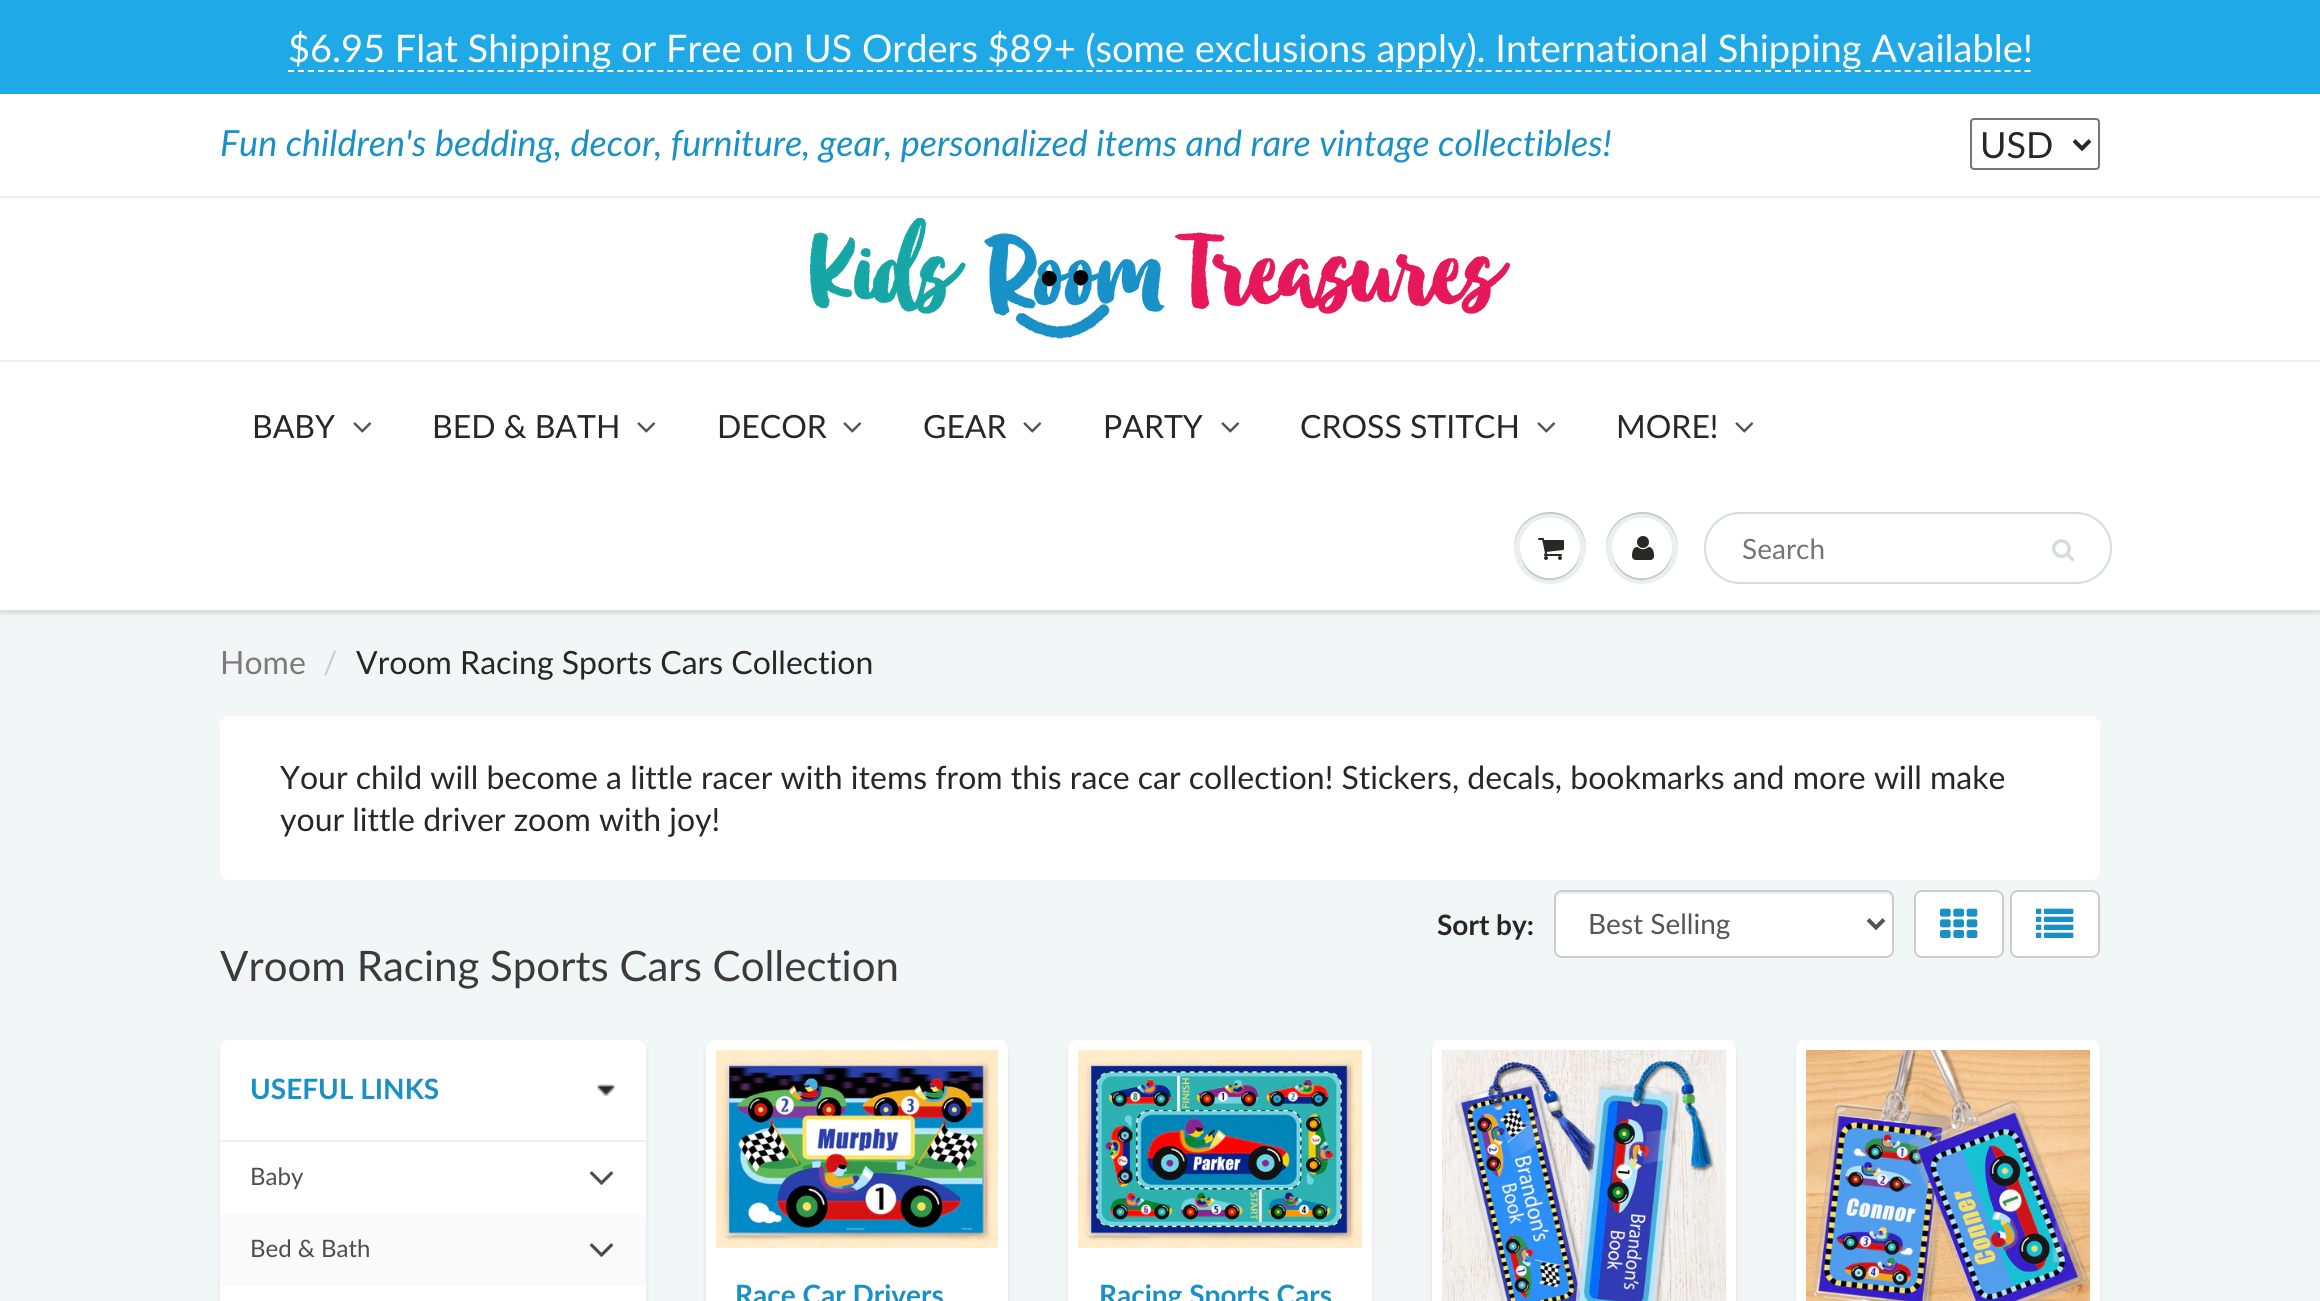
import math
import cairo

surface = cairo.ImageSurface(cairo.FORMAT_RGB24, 2320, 1301)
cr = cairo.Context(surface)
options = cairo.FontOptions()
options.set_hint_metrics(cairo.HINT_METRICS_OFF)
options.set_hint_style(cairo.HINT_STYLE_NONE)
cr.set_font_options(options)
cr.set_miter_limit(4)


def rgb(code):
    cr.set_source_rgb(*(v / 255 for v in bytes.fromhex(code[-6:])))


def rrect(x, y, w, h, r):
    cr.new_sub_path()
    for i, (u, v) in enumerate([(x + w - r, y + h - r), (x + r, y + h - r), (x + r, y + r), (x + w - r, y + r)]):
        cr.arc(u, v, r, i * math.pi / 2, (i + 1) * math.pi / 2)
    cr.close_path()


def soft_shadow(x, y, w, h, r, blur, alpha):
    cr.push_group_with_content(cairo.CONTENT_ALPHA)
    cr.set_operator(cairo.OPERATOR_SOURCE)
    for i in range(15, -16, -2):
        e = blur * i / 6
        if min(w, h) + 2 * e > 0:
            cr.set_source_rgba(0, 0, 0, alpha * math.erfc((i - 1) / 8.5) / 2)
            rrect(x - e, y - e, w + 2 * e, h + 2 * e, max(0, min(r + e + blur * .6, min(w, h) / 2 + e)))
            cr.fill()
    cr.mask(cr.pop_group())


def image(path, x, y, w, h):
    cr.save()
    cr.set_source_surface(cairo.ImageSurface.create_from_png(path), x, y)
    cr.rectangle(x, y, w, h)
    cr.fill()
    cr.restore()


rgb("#ffffff")
cr.paint()
rgb("#20a9e7")
cr.rectangle(0, 0, 2320, 94)
cr.fill()
cr.new_path()
cr.move_to(288, 71)
cr.line_to(2032, 71)
rgb("#ffffff")
cr.set_dash([6, 3.98])
cr.stroke()
rrect(1971, 119, 128, 50, 3)
rgb("#767676")
cr.set_dash([])
cr.stroke()
cr.new_path()
cr.move_to(2074, 140.5)
cr.line_to(2082, 148.5)
cr.line_to(2090, 140.5)
rgb("#282727")
cr.set_line_width(4)
cr.stroke()
rgb("#ecefef")
cr.rectangle(0, 196, 2320, 2)
cr.fill()
image("img/1.png", 810, 218, 700, 122)
rgb("#f3f6f6")
cr.rectangle(0, 610, 2320, 691)
cr.fill()
cr.save()
cr.rectangle(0, 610, 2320, 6)
cr.clip()
rgb("#0b191c")
soft_shadow(0, 364, 2320, 250, 0, 2, 0.12)
cr.restore()
rgb("#ecefef")
cr.rectangle(0, 360, 2320, 2)
cr.fill()
image("img/2.png", 353, 422, 19, 11)
image("img/2.png", 637, 422, 19, 11)
image("img/2.png", 843, 422, 19, 11)
image("img/2.png", 1023, 422, 19, 11)
image("img/2.png", 1221, 422, 19, 11)
image("img/2.png", 1537, 422, 19, 11)
image("img/2.png", 1735, 422, 19, 11)
rgb("#edefef")
cr.arc(1550, 548, 36, 0, 2 * math.pi)
cr.fill()
rgb("#c9cbcb")
cr.new_path()
cr.move_to(1580, 549)
cr.curve_to(1579, 565, 1566, 578, 1550, 578)
cr.curve_to(1534, 578, 1521, 565, 1520, 549)
cr.curve_to(1520, 555, 1522, 562, 1525, 567)
cr.curve_to(1542, 592, 1581, 579, 1580, 549)
cr.close_path()
cr.fill()
cr.new_path()
cr.move_to(1550, 514)
cr.curve_to(1570, 514, 1585, 529, 1586, 549)
cr.curve_to(1586, 542, 1584, 534, 1580, 528)
cr.curve_to(1560, 498, 1513, 513, 1514, 549)
cr.curve_to(1515, 529, 1530, 514, 1550, 514)
cr.close_path()
cr.fill()
rgb("#ffffff")
cr.arc(1550, 548, 30, 0, 2 * math.pi)
cr.fill()
cr.new_path()
cr.move_to(1550, 520)
cr.curve_to(1567, 520, 1579, 532, 1580, 549)
cr.curve_to(1580, 543, 1578, 536, 1575, 531)
cr.curve_to(1558, 506, 1519, 519, 1520, 549)
cr.curve_to(1521, 532, 1533, 520, 1550, 520)
cr.close_path()
cr.fill()
image("img/3.png", 1538, 538, 26, 22)
rgb("#edefef")
cr.arc(1642, 548, 36, 0, 2 * math.pi)
cr.fill()
rgb("#c9cbcb")
cr.new_path()
cr.move_to(1672, 549)
cr.curve_to(1671, 565, 1658, 578, 1642, 578)
cr.curve_to(1626, 578, 1613, 565, 1612, 549)
cr.curve_to(1612, 555, 1614, 562, 1617, 567)
cr.curve_to(1634, 592, 1673, 579, 1672, 549)
cr.close_path()
cr.fill()
cr.new_path()
cr.move_to(1642, 514)
cr.curve_to(1662, 514, 1677, 529, 1678, 549)
cr.curve_to(1678, 542, 1676, 534, 1672, 528)
cr.curve_to(1652, 498, 1605, 513, 1606, 549)
cr.curve_to(1607, 529, 1622, 514, 1642, 514)
cr.close_path()
cr.fill()
rgb("#ffffff")
cr.arc(1642, 548, 30, 0, 2 * math.pi)
cr.fill()
cr.new_path()
cr.move_to(1642, 520)
cr.curve_to(1659, 520, 1671, 532, 1672, 549)
cr.curve_to(1672, 543, 1670, 536, 1667, 531)
cr.curve_to(1650, 506, 1611, 519, 1612, 549)
cr.curve_to(1613, 532, 1625, 520, 1642, 520)
cr.close_path()
cr.fill()
image("img/4.png", 1632, 536, 22, 24)
rrect(1705, 513, 406, 70, 35)
rgb("#d7dbdb")
cr.set_line_width(2)
cr.stroke()
image("img/5.png", 2052, 539, 23, 23)
rrect(225, 721, 1870, 154, 5)
rgb("#ffffff")
cr.set_line_width(10)
cr.stroke()
cr.rectangle(230, 726, 1860, 144)
cr.fill()
rgb("#0b191c")
soft_shadow(220, 1044, 426, 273, 10, 2, 0.1)
rgb("#ffffff")
rrect(220, 1040, 426, 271, 10)
cr.fill()
rgb("#efefef")
cr.rectangle(220, 1140, 426, 2)
cr.fill()
image("img/6.png", 596, 1084, 20, 12)
image("img/7.png", 589, 1171, 25, 14)
rgb("#fafafa")
cr.new_path()
cr.move_to(226, 1214)
cr.line_to(640, 1214)
cr.curve_to(643.5, 1214, 646, 1216.5, 646, 1220)
cr.line_to(646, 1286)
cr.line_to(220, 1286)
cr.line_to(220, 1220)
cr.curve_to(220, 1216.5, 222.5, 1214, 226, 1214)
cr.close_path()
cr.fill()
image("img/8.png", 589, 1243, 25, 14)
rgb("#ffffff")
rrect(1554, 890, 340, 68, 8)
cr.fill()
rgb("#ececec")
cr.new_path()
cr.move_to(1562, 894)
cr.line_to(1886, 894)
cr.curve_to(1889, 894, 1892, 897, 1892, 900)
cr.line_to(1892, 898)
cr.curve_to(1892, 895, 1889, 892, 1886, 892)
cr.line_to(1562, 892)
cr.curve_to(1559, 892, 1556, 895, 1556, 898)
cr.line_to(1556, 900)
cr.curve_to(1556, 897, 1559, 894, 1562, 894)
cr.close_path()
cr.fill()
rrect(1555, 891, 338, 66, 7)
rgb("#cccccc")
cr.set_line_width(2)
cr.stroke()
cr.new_path()
cr.move_to(1868, 919.5)
cr.line_to(1876, 927.5)
cr.line_to(1884, 919.5)
rgb("#555555")
cr.set_line_width(4)
cr.stroke()
rgb("#ffffff")
rrect(1915, 891, 88, 66, 7)
cr.fill_preserve()
rgb("#cccccc")
cr.set_line_width(2)
cr.stroke()
image("img/9.png", 1940, 908, 38, 30)
rgb("#ffffff")
rrect(2011, 891, 88, 66, 7)
cr.fill_preserve()
rgb("#cccccc")
cr.stroke()
image("img/10.png", 2036, 908, 38, 30)
rgb("#0b191c")
soft_shadow(706, 1044, 302, 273, 10, 2, 0.1)
rgb("#ffffff")
rrect(711, 1045, 292, 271, 5)
cr.fill_preserve()
cr.set_line_width(10)
cr.stroke()
image("img/11.png", 716, 1050, 282, 198)
rgb("#0b191c")
soft_shadow(1068, 1044, 304, 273, 10, 2, 0.1)
rgb("#ffffff")
rrect(1073, 1045, 294, 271, 5)
cr.fill_preserve()
cr.stroke()
image("img/12.png", 1078, 1050, 284, 198)
rgb("#0b191c")
soft_shadow(1432, 1044, 304, 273, 10, 2, 0.1)
rrect(1437, 1045, 294, 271, 5)
rgb("#ffffff")
cr.stroke()
image("img/13.png", 1442, 1050, 284, 251)
rgb("#0b191c")
soft_shadow(1796, 1044, 304, 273, 10, 2, 0.1)
rrect(1801, 1045, 294, 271, 5)
rgb("#ffffff")
cr.stroke()
image("img/14.png", 1806, 1050, 284, 251)
cr.select_font_face("Lato")
cr.set_font_size(38)
cr.move_to(288, 62)
cr.show_text("$6.95 Flat Shipping or Free on US Orders $89+ (some exclusions apply). International Shipping Available!")
cr.select_font_face("Lato", cairo.FONT_SLANT_ITALIC)
cr.set_font_size(36)
rgb("#1990c6")
cr.move_to(220, 156)
cr.show_text("Fun children's bedding, decor, furniture, gear, personalized items and rare vintage collectibles!")
cr.select_font_face("Lato")
rgb("#282727")
cr.move_to(1980, 158)
cr.show_text("USD")
cr.set_font_size(32)
for x, y, s in [
    (252, 438, "BABY"),
    (432, 438, "BED & BATH"),
    (717, 438, "DECOR"),
    (923, 438, "GEAR"),
    (1103, 438, "PARTY"),
    (1300, 438, "CROSS STITCH"),
    (1616, 438, "MORE!"),
]:
    cr.move_to(x, y)
    cr.show_text(s)
cr.set_font_size(28)
rgb("#757575")
cr.move_to(1742, 559)
cr.show_text("Search")
cr.set_font_size(32)
rgb("#7d7a7a")
cr.move_to(220, 674)
cr.show_text("Home")
rgb("#cccccc")
cr.move_to(323, 674)
cr.show_text("/")
rgb("#282727")
for x, y, s in [
    (356, 674, "Vroom Racing Sports Cars Collection"),
    (280, 789, "Your child will become a little racer with items from this race car collection! Stickers, decals, bookmarks and more will make"),
    (280, 831, "your little driver zoom with joy!"),
]:
    cr.move_to(x, y)
    cr.show_text(s)
cr.select_font_face("Lato", cairo.FONT_SLANT_NORMAL, cairo.FONT_WEIGHT_BOLD)
cr.set_font_size(28)
rgb("#1990c6")
cr.move_to(250, 1099)
cr.show_text("USEFUL LINKS")
cr.select_font_face("Lato")
cr.set_font_size(24)
rgb("#4e4e4e")
cr.move_to(250, 1185)
cr.show_text("Baby")
cr.move_to(250, 1257)
cr.show_text("Bed & Bath")
cr.select_font_face("Lato", cairo.FONT_SLANT_NORMAL, cairo.FONT_WEIGHT_BOLD)
cr.set_font_size(28)
rgb("#282727")
cr.move_to(1437, 935)
cr.show_text("Sort by:")
cr.select_font_face("Lato")
rgb("#555555")
cr.move_to(1588, 934)
cr.show_text("Best Selling")
cr.select_font_face("Lato", cairo.FONT_SLANT_NORMAL, cairo.FONT_WEIGHT_BOLD)
rgb("#1990c6")
cr.move_to(735, 1305)
cr.show_text("Race Car Drivers")
cr.move_to(1099, 1305)
cr.show_text("Racing Sports Cars")
cr.select_font_face("Lato")
cr.set_font_size(42)
rgb("#3c3b3b")
cr.move_to(220, 981)
cr.show_text("Vroom Racing Sports Cars Collection")
surface.write_to_png("page.png")
